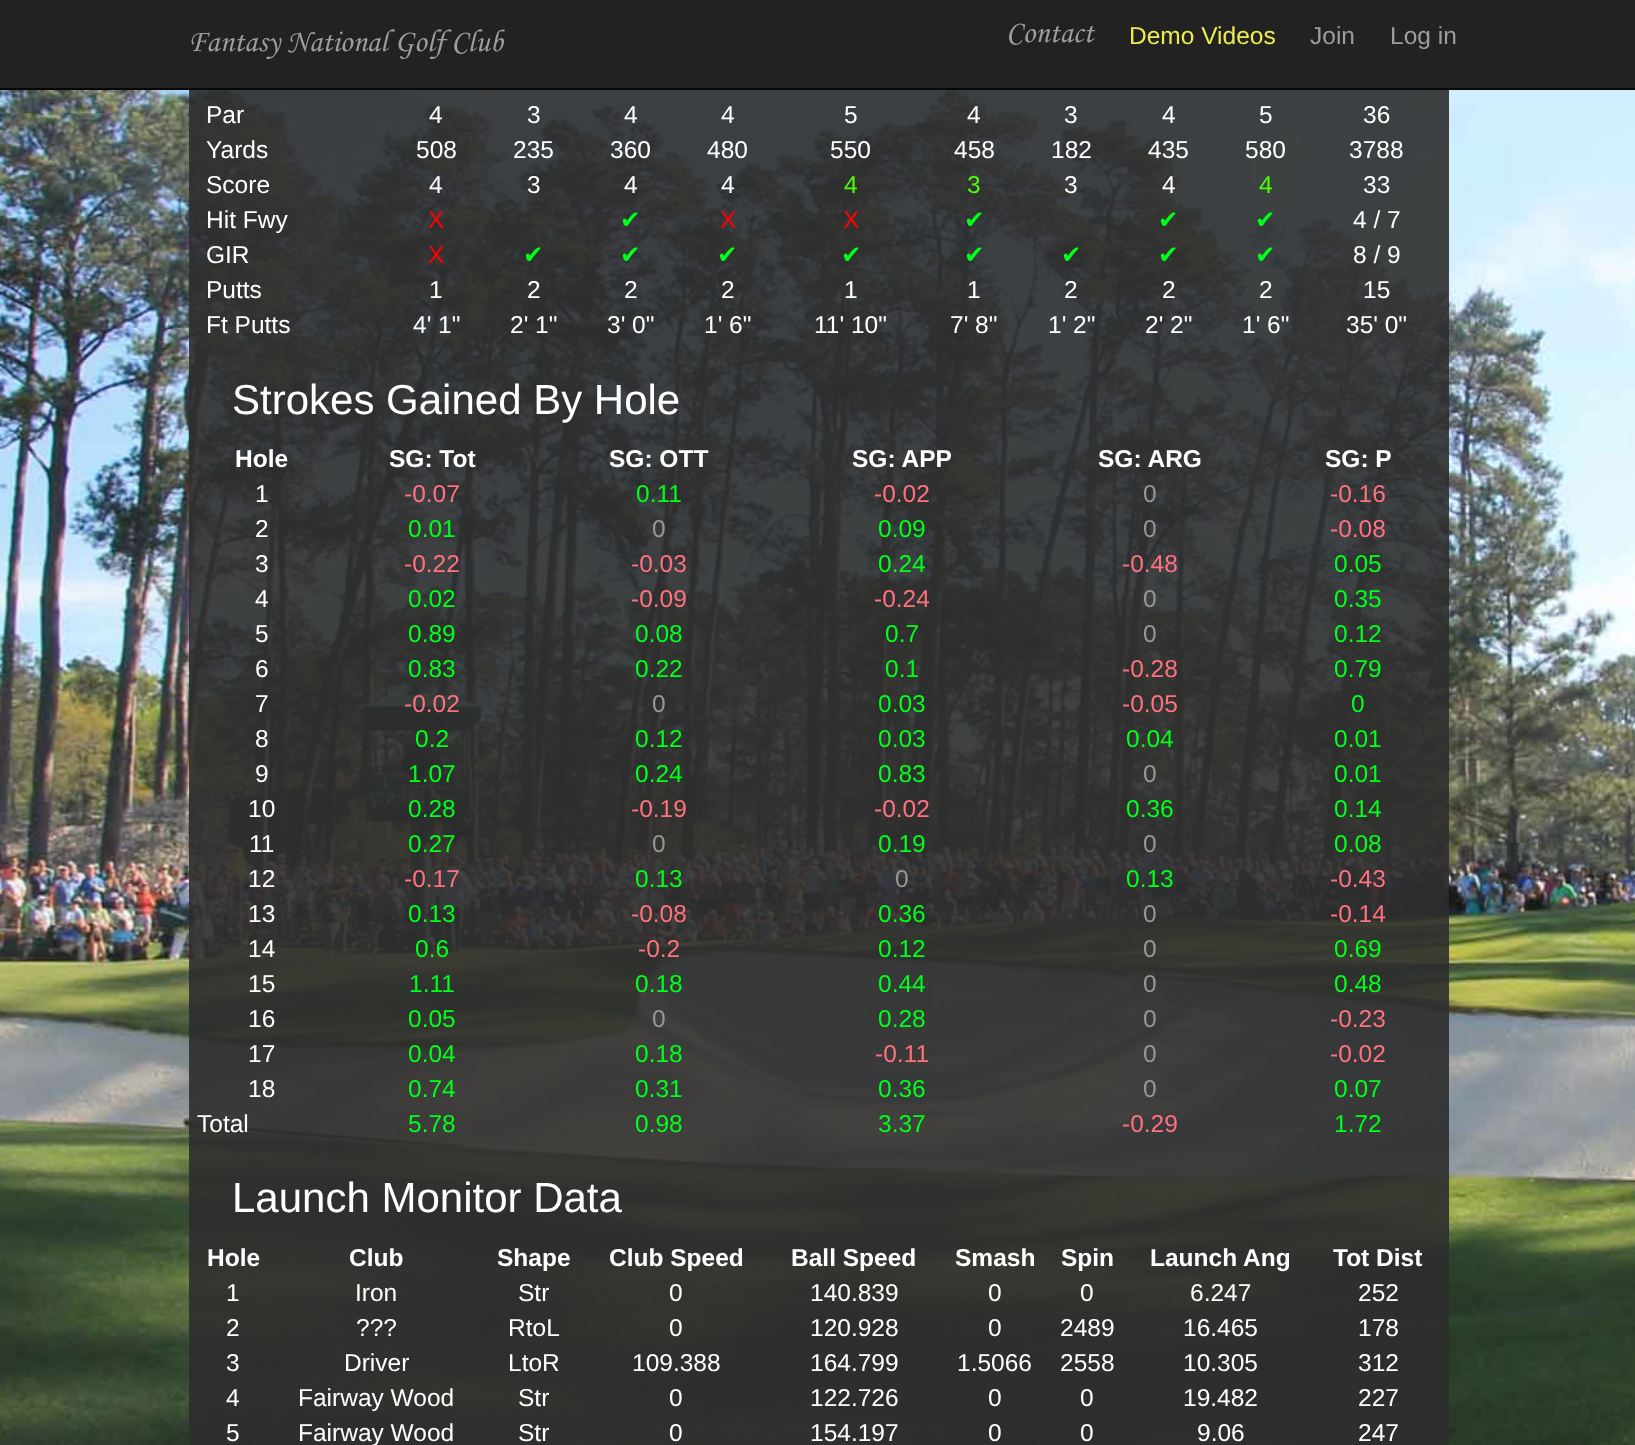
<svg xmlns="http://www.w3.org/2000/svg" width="1635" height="1445">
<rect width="100%" height="100%" fill="#fff"/>
<rect width="1635" height="88" fill="#222"/>
<rect y="88" width="1635" height="2" fill="#080808"/>
<text x="188" y="51" style="font-family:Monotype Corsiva;font-size:31.5px;font-style:italic;fill:#9d9d9d">Fantasy National Golf Club</text>
<text x="1006" y="42" style="font-family:Monotype Corsiva;font-size:31.5px;font-style:italic;fill:#9d9d9d">Contact</text>
<text x="1129" y="44" style="font-family:Liberation Sans;font-size:24.5px;fill:#ecec4f">Demo Videos</text>
<text x="1310" y="44" style="font-family:Liberation Sans;font-size:24.5px;fill:#9d9d9d">Join</text>
<text x="1390" y="44" style="font-family:Liberation Sans;font-size:24.5px;fill:#9d9d9d">Log in</text>
<image x="0" y="90" width="1635" height="1355" href="media/1.png"/>
<rect x="189" y="90" width="1260" height="1355" fill="#2d2d2de6"/>
<text x="206" y="123" style="font-family:Liberation Sans;font-size:24.5px;fill:#fff">Par</text>
<text x="429" y="123" style="font-family:Liberation Sans;font-size:24.5px;fill:#fff">4</text>
<text x="527" y="123" style="font-family:Liberation Sans;font-size:24.5px;fill:#fff">3</text>
<text x="624" y="123" style="font-family:Liberation Sans;font-size:24.5px;fill:#fff">4</text>
<text x="721" y="123" style="font-family:Liberation Sans;font-size:24.5px;fill:#fff">4</text>
<text x="844" y="123" style="font-family:Liberation Sans;font-size:24.5px;fill:#fff">5</text>
<text x="967" y="123" style="font-family:Liberation Sans;font-size:24.5px;fill:#fff">4</text>
<text x="1064" y="123" style="font-family:Liberation Sans;font-size:24.5px;fill:#fff">3</text>
<text x="1162" y="123" style="font-family:Liberation Sans;font-size:24.5px;fill:#fff">4</text>
<text x="1259" y="123" style="font-family:Liberation Sans;font-size:24.5px;fill:#fff">5</text>
<text x="1363" y="123" style="font-family:Liberation Sans;font-size:24.5px;fill:#fff">36</text>
<text x="206" y="158" style="font-family:Liberation Sans;font-size:24.5px;fill:#fff">Yards</text>
<text x="416" y="158" style="font-family:Liberation Sans;font-size:24.5px;fill:#fff">508</text>
<text x="513" y="158" style="font-family:Liberation Sans;font-size:24.5px;fill:#fff">235</text>
<text x="610" y="158" style="font-family:Liberation Sans;font-size:24.5px;fill:#fff">360</text>
<text x="707" y="158" style="font-family:Liberation Sans;font-size:24.5px;fill:#fff">480</text>
<text x="830" y="158" style="font-family:Liberation Sans;font-size:24.5px;fill:#fff">550</text>
<text x="954" y="158" style="font-family:Liberation Sans;font-size:24.5px;fill:#fff">458</text>
<text x="1051" y="158" style="font-family:Liberation Sans;font-size:24.5px;fill:#fff">182</text>
<text x="1148" y="158" style="font-family:Liberation Sans;font-size:24.5px;fill:#fff">435</text>
<text x="1245" y="158" style="font-family:Liberation Sans;font-size:24.5px;fill:#fff">580</text>
<text x="1349" y="158" style="font-family:Liberation Sans;font-size:24.5px;fill:#fff">3788</text>
<text x="206" y="193" style="font-family:Liberation Sans;font-size:24.5px;fill:#fff">Score</text>
<text x="429" y="193" style="font-family:Liberation Sans;font-size:24.5px;fill:#fff">4</text>
<text x="527" y="193" style="font-family:Liberation Sans;font-size:24.5px;fill:#fff">3</text>
<text x="624" y="193" style="font-family:Liberation Sans;font-size:24.5px;fill:#fff">4</text>
<text x="721" y="193" style="font-family:Liberation Sans;font-size:24.5px;fill:#fff">4</text>
<text x="844" y="193" style="font-family:Liberation Sans;font-size:24.5px;fill:#4cff00">4</text>
<text x="967" y="193" style="font-family:Liberation Sans;font-size:24.5px;fill:#4cff00">3</text>
<text x="1064" y="193" style="font-family:Liberation Sans;font-size:24.5px;fill:#fff">3</text>
<text x="1162" y="193" style="font-family:Liberation Sans;font-size:24.5px;fill:#fff">4</text>
<text x="1259" y="193" style="font-family:Liberation Sans;font-size:24.5px;fill:#4cff00">4</text>
<text x="1363" y="193" style="font-family:Liberation Sans;font-size:24.5px;fill:#fff">33</text>
<text x="206" y="228" style="font-family:Liberation Sans;font-size:24.5px;fill:#fff">Hit Fwy</text>
<text x="428" y="228" style="font-family:Liberation Sans;font-size:24.5px;fill:#f00">X</text>
<text x="620" y="228" style="font-family:DejaVu Sans;font-size:24.5px;fill:#00ff1a">✔</text>
<text x="720" y="228" style="font-family:Liberation Sans;font-size:24.5px;fill:#f00">X</text>
<text x="843" y="228" style="font-family:Liberation Sans;font-size:24.5px;fill:#f00">X</text>
<text x="964" y="228" style="font-family:DejaVu Sans;font-size:24.5px;fill:#00ff1a">✔</text>
<text x="1158" y="228" style="font-family:DejaVu Sans;font-size:24.5px;fill:#00ff1a">✔</text>
<text x="1255" y="228" style="font-family:DejaVu Sans;font-size:24.5px;fill:#00ff1a">✔</text>
<text x="1353" y="228" style="font-family:Liberation Sans;font-size:24.5px;fill:#fff">4 / 7</text>
<text x="206" y="263" style="font-family:Liberation Sans;font-size:24.5px;fill:#fff">GIR</text>
<text x="428" y="263" style="font-family:Liberation Sans;font-size:24.5px;fill:#f00">X</text>
<text x="523" y="263" style="font-family:DejaVu Sans;font-size:24.5px;fill:#00ff1a">✔</text>
<text x="620" y="263" style="font-family:DejaVu Sans;font-size:24.5px;fill:#00ff1a">✔</text>
<text x="717" y="263" style="font-family:DejaVu Sans;font-size:24.5px;fill:#00ff1a">✔</text>
<text x="841" y="263" style="font-family:DejaVu Sans;font-size:24.5px;fill:#00ff1a">✔</text>
<text x="964" y="263" style="font-family:DejaVu Sans;font-size:24.5px;fill:#00ff1a">✔</text>
<text x="1061" y="263" style="font-family:DejaVu Sans;font-size:24.5px;fill:#00ff1a">✔</text>
<text x="1158" y="263" style="font-family:DejaVu Sans;font-size:24.5px;fill:#00ff1a">✔</text>
<text x="1255" y="263" style="font-family:DejaVu Sans;font-size:24.5px;fill:#00ff1a">✔</text>
<text x="1353" y="263" style="font-family:Liberation Sans;font-size:24.5px;fill:#fff">8 / 9</text>
<text x="206" y="298" style="font-family:Liberation Sans;font-size:24.5px;fill:#fff">Putts</text>
<text x="429" y="298" style="font-family:Liberation Sans;font-size:24.5px;fill:#fff">1</text>
<text x="527" y="298" style="font-family:Liberation Sans;font-size:24.5px;fill:#fff">2</text>
<text x="624" y="298" style="font-family:Liberation Sans;font-size:24.5px;fill:#fff">2</text>
<text x="721" y="298" style="font-family:Liberation Sans;font-size:24.5px;fill:#fff">2</text>
<text x="844" y="298" style="font-family:Liberation Sans;font-size:24.5px;fill:#fff">1</text>
<text x="967" y="298" style="font-family:Liberation Sans;font-size:24.5px;fill:#fff">1</text>
<text x="1064" y="298" style="font-family:Liberation Sans;font-size:24.5px;fill:#fff">2</text>
<text x="1162" y="298" style="font-family:Liberation Sans;font-size:24.5px;fill:#fff">2</text>
<text x="1259" y="298" style="font-family:Liberation Sans;font-size:24.5px;fill:#fff">2</text>
<text x="1363" y="298" style="font-family:Liberation Sans;font-size:24.5px;fill:#fff">15</text>
<text x="206" y="333" style="font-family:Liberation Sans;font-size:24.5px;fill:#fff">Ft Putts</text>
<text x="413" y="333" style="font-family:Liberation Sans;font-size:24.5px;fill:#fff">4' 1"</text>
<text x="510" y="333" style="font-family:Liberation Sans;font-size:24.5px;fill:#fff">2' 1"</text>
<text x="607" y="333" style="font-family:Liberation Sans;font-size:24.5px;fill:#fff">3' 0"</text>
<text x="704" y="333" style="font-family:Liberation Sans;font-size:24.5px;fill:#fff">1' 6"</text>
<text x="814" y="333" style="font-family:Liberation Sans;font-size:24.5px;fill:#fff">11' 10"</text>
<text x="950" y="333" style="font-family:Liberation Sans;font-size:24.5px;fill:#fff">7' 8"</text>
<text x="1048" y="333" style="font-family:Liberation Sans;font-size:24.5px;fill:#fff">1' 2"</text>
<text x="1145" y="333" style="font-family:Liberation Sans;font-size:24.5px;fill:#fff">2' 2"</text>
<text x="1242" y="333" style="font-family:Liberation Sans;font-size:24.5px;fill:#fff">1' 6"</text>
<text x="1346" y="333" style="font-family:Liberation Sans;font-size:24.5px;fill:#fff">35' 0"</text>
<text x="232" y="414" style="font-family:Liberation Sans;font-size:42px;fill:#fff">Strokes Gained By Hole</text>
<text x="235" y="467" style="font-family:Liberation Sans;font-size:24.5px;font-weight:bold;fill:#fff">Hole</text>
<text x="389" y="467" style="font-family:Liberation Sans;font-size:24.5px;font-weight:bold;fill:#fff">SG: Tot</text>
<text x="609" y="467" style="font-family:Liberation Sans;font-size:24.5px;font-weight:bold;fill:#fff">SG: OTT</text>
<text x="852" y="467" style="font-family:Liberation Sans;font-size:24.5px;font-weight:bold;fill:#fff">SG: APP</text>
<text x="1098" y="467" style="font-family:Liberation Sans;font-size:24.5px;font-weight:bold;fill:#fff">SG: ARG</text>
<text x="1325" y="467" style="font-family:Liberation Sans;font-size:24.5px;font-weight:bold;fill:#fff">SG: P</text>
<text x="255" y="502" style="font-family:Liberation Sans;font-size:24.5px;fill:#fff">1</text>
<text x="404" y="502" style="font-family:Liberation Sans;font-size:24.5px;fill:#ff717e">-0.07</text>
<text x="636" y="502" style="font-family:Liberation Sans;font-size:24.5px;fill:#00ff1a">0.11</text>
<text x="874" y="502" style="font-family:Liberation Sans;font-size:24.5px;fill:#ff717e">-0.02</text>
<text x="1143" y="502" style="font-family:Liberation Sans;font-size:24.5px;fill:#969696">0</text>
<text x="1330" y="502" style="font-family:Liberation Sans;font-size:24.5px;fill:#ff717e">-0.16</text>
<text x="255" y="537" style="font-family:Liberation Sans;font-size:24.5px;fill:#fff">2</text>
<text x="408" y="537" style="font-family:Liberation Sans;font-size:24.5px;fill:#00ff1a">0.01</text>
<text x="652" y="537" style="font-family:Liberation Sans;font-size:24.5px;fill:#969696">0</text>
<text x="878" y="537" style="font-family:Liberation Sans;font-size:24.5px;fill:#00ff1a">0.09</text>
<text x="1143" y="537" style="font-family:Liberation Sans;font-size:24.5px;fill:#969696">0</text>
<text x="1330" y="537" style="font-family:Liberation Sans;font-size:24.5px;fill:#ff717e">-0.08</text>
<text x="255" y="572" style="font-family:Liberation Sans;font-size:24.5px;fill:#fff">3</text>
<text x="404" y="572" style="font-family:Liberation Sans;font-size:24.5px;fill:#ff717e">-0.22</text>
<text x="631" y="572" style="font-family:Liberation Sans;font-size:24.5px;fill:#ff717e">-0.03</text>
<text x="878" y="572" style="font-family:Liberation Sans;font-size:24.5px;fill:#00ff1a">0.24</text>
<text x="1122" y="572" style="font-family:Liberation Sans;font-size:24.5px;fill:#ff717e">-0.48</text>
<text x="1334" y="572" style="font-family:Liberation Sans;font-size:24.5px;fill:#00ff1a">0.05</text>
<text x="255" y="607" style="font-family:Liberation Sans;font-size:24.5px;fill:#fff">4</text>
<text x="408" y="607" style="font-family:Liberation Sans;font-size:24.5px;fill:#00ff1a">0.02</text>
<text x="631" y="607" style="font-family:Liberation Sans;font-size:24.5px;fill:#ff717e">-0.09</text>
<text x="874" y="607" style="font-family:Liberation Sans;font-size:24.5px;fill:#ff717e">-0.24</text>
<text x="1143" y="607" style="font-family:Liberation Sans;font-size:24.5px;fill:#969696">0</text>
<text x="1334" y="607" style="font-family:Liberation Sans;font-size:24.5px;fill:#00ff1a">0.35</text>
<text x="255" y="642" style="font-family:Liberation Sans;font-size:24.5px;fill:#fff">5</text>
<text x="408" y="642" style="font-family:Liberation Sans;font-size:24.5px;fill:#00ff1a">0.89</text>
<text x="635" y="642" style="font-family:Liberation Sans;font-size:24.5px;fill:#00ff1a">0.08</text>
<text x="885" y="642" style="font-family:Liberation Sans;font-size:24.5px;fill:#00ff1a">0.7</text>
<text x="1143" y="642" style="font-family:Liberation Sans;font-size:24.5px;fill:#969696">0</text>
<text x="1334" y="642" style="font-family:Liberation Sans;font-size:24.5px;fill:#00ff1a">0.12</text>
<text x="255" y="677" style="font-family:Liberation Sans;font-size:24.5px;fill:#fff">6</text>
<text x="408" y="677" style="font-family:Liberation Sans;font-size:24.5px;fill:#00ff1a">0.83</text>
<text x="635" y="677" style="font-family:Liberation Sans;font-size:24.5px;fill:#00ff1a">0.22</text>
<text x="885" y="677" style="font-family:Liberation Sans;font-size:24.5px;fill:#00ff1a">0.1</text>
<text x="1122" y="677" style="font-family:Liberation Sans;font-size:24.5px;fill:#ff717e">-0.28</text>
<text x="1334" y="677" style="font-family:Liberation Sans;font-size:24.5px;fill:#00ff1a">0.79</text>
<text x="255" y="712" style="font-family:Liberation Sans;font-size:24.5px;fill:#fff">7</text>
<text x="404" y="712" style="font-family:Liberation Sans;font-size:24.5px;fill:#ff717e">-0.02</text>
<text x="652" y="712" style="font-family:Liberation Sans;font-size:24.5px;fill:#969696">0</text>
<text x="878" y="712" style="font-family:Liberation Sans;font-size:24.5px;fill:#00ff1a">0.03</text>
<text x="1122" y="712" style="font-family:Liberation Sans;font-size:24.5px;fill:#ff717e">-0.05</text>
<text x="1351" y="712" style="font-family:Liberation Sans;font-size:24.5px;fill:#00ff1a">0</text>
<text x="255" y="747" style="font-family:Liberation Sans;font-size:24.5px;fill:#fff">8</text>
<text x="415" y="747" style="font-family:Liberation Sans;font-size:24.5px;fill:#00ff1a">0.2</text>
<text x="635" y="747" style="font-family:Liberation Sans;font-size:24.5px;fill:#00ff1a">0.12</text>
<text x="878" y="747" style="font-family:Liberation Sans;font-size:24.5px;fill:#00ff1a">0.03</text>
<text x="1126" y="747" style="font-family:Liberation Sans;font-size:24.5px;fill:#00ff1a">0.04</text>
<text x="1334" y="747" style="font-family:Liberation Sans;font-size:24.5px;fill:#00ff1a">0.01</text>
<text x="255" y="782" style="font-family:Liberation Sans;font-size:24.5px;fill:#fff">9</text>
<text x="408" y="782" style="font-family:Liberation Sans;font-size:24.5px;fill:#00ff1a">1.07</text>
<text x="635" y="782" style="font-family:Liberation Sans;font-size:24.5px;fill:#00ff1a">0.24</text>
<text x="878" y="782" style="font-family:Liberation Sans;font-size:24.5px;fill:#00ff1a">0.83</text>
<text x="1143" y="782" style="font-family:Liberation Sans;font-size:24.5px;fill:#969696">0</text>
<text x="1334" y="782" style="font-family:Liberation Sans;font-size:24.5px;fill:#00ff1a">0.01</text>
<text x="248" y="817" style="font-family:Liberation Sans;font-size:24.5px;fill:#fff">10</text>
<text x="408" y="817" style="font-family:Liberation Sans;font-size:24.5px;fill:#00ff1a">0.28</text>
<text x="631" y="817" style="font-family:Liberation Sans;font-size:24.5px;fill:#ff717e">-0.19</text>
<text x="874" y="817" style="font-family:Liberation Sans;font-size:24.5px;fill:#ff717e">-0.02</text>
<text x="1126" y="817" style="font-family:Liberation Sans;font-size:24.5px;fill:#00ff1a">0.36</text>
<text x="1334" y="817" style="font-family:Liberation Sans;font-size:24.5px;fill:#00ff1a">0.14</text>
<text x="249" y="852" style="font-family:Liberation Sans;font-size:24.5px;fill:#fff">11</text>
<text x="408" y="852" style="font-family:Liberation Sans;font-size:24.5px;fill:#00ff1a">0.27</text>
<text x="652" y="852" style="font-family:Liberation Sans;font-size:24.5px;fill:#969696">0</text>
<text x="878" y="852" style="font-family:Liberation Sans;font-size:24.5px;fill:#00ff1a">0.19</text>
<text x="1143" y="852" style="font-family:Liberation Sans;font-size:24.5px;fill:#969696">0</text>
<text x="1334" y="852" style="font-family:Liberation Sans;font-size:24.5px;fill:#00ff1a">0.08</text>
<text x="248" y="887" style="font-family:Liberation Sans;font-size:24.5px;fill:#fff">12</text>
<text x="404" y="887" style="font-family:Liberation Sans;font-size:24.5px;fill:#ff717e">-0.17</text>
<text x="635" y="887" style="font-family:Liberation Sans;font-size:24.5px;fill:#00ff1a">0.13</text>
<text x="895" y="887" style="font-family:Liberation Sans;font-size:24.5px;fill:#969696">0</text>
<text x="1126" y="887" style="font-family:Liberation Sans;font-size:24.5px;fill:#00ff1a">0.13</text>
<text x="1330" y="887" style="font-family:Liberation Sans;font-size:24.5px;fill:#ff717e">-0.43</text>
<text x="248" y="922" style="font-family:Liberation Sans;font-size:24.5px;fill:#fff">13</text>
<text x="408" y="922" style="font-family:Liberation Sans;font-size:24.5px;fill:#00ff1a">0.13</text>
<text x="631" y="922" style="font-family:Liberation Sans;font-size:24.5px;fill:#ff717e">-0.08</text>
<text x="878" y="922" style="font-family:Liberation Sans;font-size:24.5px;fill:#00ff1a">0.36</text>
<text x="1143" y="922" style="font-family:Liberation Sans;font-size:24.5px;fill:#969696">0</text>
<text x="1330" y="922" style="font-family:Liberation Sans;font-size:24.5px;fill:#ff717e">-0.14</text>
<text x="248" y="957" style="font-family:Liberation Sans;font-size:24.5px;fill:#fff">14</text>
<text x="415" y="957" style="font-family:Liberation Sans;font-size:24.5px;fill:#00ff1a">0.6</text>
<text x="638" y="957" style="font-family:Liberation Sans;font-size:24.5px;fill:#ff717e">-0.2</text>
<text x="878" y="957" style="font-family:Liberation Sans;font-size:24.5px;fill:#00ff1a">0.12</text>
<text x="1143" y="957" style="font-family:Liberation Sans;font-size:24.5px;fill:#969696">0</text>
<text x="1334" y="957" style="font-family:Liberation Sans;font-size:24.5px;fill:#00ff1a">0.69</text>
<text x="248" y="992" style="font-family:Liberation Sans;font-size:24.5px;fill:#fff">15</text>
<text x="409" y="992" style="font-family:Liberation Sans;font-size:24.5px;fill:#00ff1a">1.11</text>
<text x="635" y="992" style="font-family:Liberation Sans;font-size:24.5px;fill:#00ff1a">0.18</text>
<text x="878" y="992" style="font-family:Liberation Sans;font-size:24.5px;fill:#00ff1a">0.44</text>
<text x="1143" y="992" style="font-family:Liberation Sans;font-size:24.5px;fill:#969696">0</text>
<text x="1334" y="992" style="font-family:Liberation Sans;font-size:24.5px;fill:#00ff1a">0.48</text>
<text x="248" y="1027" style="font-family:Liberation Sans;font-size:24.5px;fill:#fff">16</text>
<text x="408" y="1027" style="font-family:Liberation Sans;font-size:24.5px;fill:#00ff1a">0.05</text>
<text x="652" y="1027" style="font-family:Liberation Sans;font-size:24.5px;fill:#969696">0</text>
<text x="878" y="1027" style="font-family:Liberation Sans;font-size:24.5px;fill:#00ff1a">0.28</text>
<text x="1143" y="1027" style="font-family:Liberation Sans;font-size:24.5px;fill:#969696">0</text>
<text x="1330" y="1027" style="font-family:Liberation Sans;font-size:24.5px;fill:#ff717e">-0.23</text>
<text x="248" y="1062" style="font-family:Liberation Sans;font-size:24.5px;fill:#fff">17</text>
<text x="408" y="1062" style="font-family:Liberation Sans;font-size:24.5px;fill:#00ff1a">0.04</text>
<text x="635" y="1062" style="font-family:Liberation Sans;font-size:24.5px;fill:#00ff1a">0.18</text>
<text x="875" y="1062" style="font-family:Liberation Sans;font-size:24.5px;fill:#ff717e">-0.11</text>
<text x="1143" y="1062" style="font-family:Liberation Sans;font-size:24.5px;fill:#969696">0</text>
<text x="1330" y="1062" style="font-family:Liberation Sans;font-size:24.5px;fill:#ff717e">-0.02</text>
<text x="248" y="1097" style="font-family:Liberation Sans;font-size:24.5px;fill:#fff">18</text>
<text x="408" y="1097" style="font-family:Liberation Sans;font-size:24.5px;fill:#00ff1a">0.74</text>
<text x="635" y="1097" style="font-family:Liberation Sans;font-size:24.5px;fill:#00ff1a">0.31</text>
<text x="878" y="1097" style="font-family:Liberation Sans;font-size:24.5px;fill:#00ff1a">0.36</text>
<text x="1143" y="1097" style="font-family:Liberation Sans;font-size:24.5px;fill:#969696">0</text>
<text x="1334" y="1097" style="font-family:Liberation Sans;font-size:24.5px;fill:#00ff1a">0.07</text>
<text x="197" y="1132" style="font-family:Liberation Sans;font-size:24.5px;fill:#fff">Total</text>
<text x="408" y="1132" style="font-family:Liberation Sans;font-size:24.5px;fill:#00ff1a">5.78</text>
<text x="635" y="1132" style="font-family:Liberation Sans;font-size:24.5px;fill:#00ff1a">0.98</text>
<text x="878" y="1132" style="font-family:Liberation Sans;font-size:24.5px;fill:#00ff1a">3.37</text>
<text x="1122" y="1132" style="font-family:Liberation Sans;font-size:24.5px;fill:#ff717e">-0.29</text>
<text x="1334" y="1132" style="font-family:Liberation Sans;font-size:24.5px;fill:#00ff1a">1.72</text>
<text x="232" y="1212" style="font-family:Liberation Sans;font-size:42px;fill:#fff">Launch Monitor Data</text>
<text x="207" y="1266" style="font-family:Liberation Sans;font-size:24.5px;font-weight:bold;fill:#fff">Hole</text>
<text x="349" y="1266" style="font-family:Liberation Sans;font-size:24.5px;font-weight:bold;fill:#fff">Club</text>
<text x="497" y="1266" style="font-family:Liberation Sans;font-size:24.5px;font-weight:bold;fill:#fff">Shape</text>
<text x="609" y="1266" style="font-family:Liberation Sans;font-size:24.5px;font-weight:bold;fill:#fff">Club Speed</text>
<text x="791" y="1266" style="font-family:Liberation Sans;font-size:24.5px;font-weight:bold;fill:#fff">Ball Speed</text>
<text x="955" y="1266" style="font-family:Liberation Sans;font-size:24.5px;font-weight:bold;fill:#fff">Smash</text>
<text x="1061" y="1266" style="font-family:Liberation Sans;font-size:24.5px;font-weight:bold;fill:#fff">Spin</text>
<text x="1150" y="1266" style="font-family:Liberation Sans;font-size:24.5px;font-weight:bold;fill:#fff">Launch Ang</text>
<text x="1333" y="1266" style="font-family:Liberation Sans;font-size:24.5px;font-weight:bold;fill:#fff">Tot Dist</text>
<text x="226" y="1301" style="font-family:Liberation Sans;font-size:24.5px;fill:#fff">1</text>
<text x="355" y="1301" style="font-family:Liberation Sans;font-size:24.5px;fill:#fff">Iron</text>
<text x="518" y="1301" style="font-family:Liberation Sans;font-size:24.5px;fill:#fff">Str</text>
<text x="669" y="1301" style="font-family:Liberation Sans;font-size:24.5px;fill:#fff">0</text>
<text x="810" y="1301" style="font-family:Liberation Sans;font-size:24.5px;fill:#fff">140.839</text>
<text x="988" y="1301" style="font-family:Liberation Sans;font-size:24.5px;fill:#fff">0</text>
<text x="1080" y="1301" style="font-family:Liberation Sans;font-size:24.5px;fill:#fff">0</text>
<text x="1190" y="1301" style="font-family:Liberation Sans;font-size:24.5px;fill:#fff">6.247</text>
<text x="1358" y="1301" style="font-family:Liberation Sans;font-size:24.5px;fill:#fff">252</text>
<text x="226" y="1336" style="font-family:Liberation Sans;font-size:24.5px;fill:#fff">2</text>
<text x="356" y="1336" style="font-family:Liberation Sans;font-size:24.5px;fill:#fff">???</text>
<text x="508" y="1336" style="font-family:Liberation Sans;font-size:24.5px;fill:#fff">RtoL</text>
<text x="669" y="1336" style="font-family:Liberation Sans;font-size:24.5px;fill:#fff">0</text>
<text x="810" y="1336" style="font-family:Liberation Sans;font-size:24.5px;fill:#fff">120.928</text>
<text x="988" y="1336" style="font-family:Liberation Sans;font-size:24.5px;fill:#fff">0</text>
<text x="1060" y="1336" style="font-family:Liberation Sans;font-size:24.5px;fill:#fff">2489</text>
<text x="1183" y="1336" style="font-family:Liberation Sans;font-size:24.5px;fill:#fff">16.465</text>
<text x="1358" y="1336" style="font-family:Liberation Sans;font-size:24.5px;fill:#fff">178</text>
<text x="226" y="1371" style="font-family:Liberation Sans;font-size:24.5px;fill:#fff">3</text>
<text x="344" y="1371" style="font-family:Liberation Sans;font-size:24.5px;fill:#fff">Driver</text>
<text x="508" y="1371" style="font-family:Liberation Sans;font-size:24.5px;fill:#fff">LtoR</text>
<text x="632" y="1371" style="font-family:Liberation Sans;font-size:24.5px;fill:#fff">109.388</text>
<text x="810" y="1371" style="font-family:Liberation Sans;font-size:24.5px;fill:#fff">164.799</text>
<text x="957" y="1371" style="font-family:Liberation Sans;font-size:24.5px;fill:#fff">1.5066</text>
<text x="1060" y="1371" style="font-family:Liberation Sans;font-size:24.5px;fill:#fff">2558</text>
<text x="1183" y="1371" style="font-family:Liberation Sans;font-size:24.5px;fill:#fff">10.305</text>
<text x="1358" y="1371" style="font-family:Liberation Sans;font-size:24.5px;fill:#fff">312</text>
<text x="226" y="1406" style="font-family:Liberation Sans;font-size:24.5px;fill:#fff">4</text>
<text x="298" y="1406" style="font-family:Liberation Sans;font-size:24.5px;fill:#fff">Fairway Wood</text>
<text x="518" y="1406" style="font-family:Liberation Sans;font-size:24.5px;fill:#fff">Str</text>
<text x="669" y="1406" style="font-family:Liberation Sans;font-size:24.5px;fill:#fff">0</text>
<text x="810" y="1406" style="font-family:Liberation Sans;font-size:24.5px;fill:#fff">122.726</text>
<text x="988" y="1406" style="font-family:Liberation Sans;font-size:24.5px;fill:#fff">0</text>
<text x="1080" y="1406" style="font-family:Liberation Sans;font-size:24.5px;fill:#fff">0</text>
<text x="1183" y="1406" style="font-family:Liberation Sans;font-size:24.5px;fill:#fff">19.482</text>
<text x="1358" y="1406" style="font-family:Liberation Sans;font-size:24.5px;fill:#fff">227</text>
<text x="226" y="1441" style="font-family:Liberation Sans;font-size:24.5px;fill:#fff">5</text>
<text x="298" y="1441" style="font-family:Liberation Sans;font-size:24.5px;fill:#fff">Fairway Wood</text>
<text x="518" y="1441" style="font-family:Liberation Sans;font-size:24.5px;fill:#fff">Str</text>
<text x="669" y="1441" style="font-family:Liberation Sans;font-size:24.5px;fill:#fff">0</text>
<text x="810" y="1441" style="font-family:Liberation Sans;font-size:24.5px;fill:#fff">154.197</text>
<text x="988" y="1441" style="font-family:Liberation Sans;font-size:24.5px;fill:#fff">0</text>
<text x="1080" y="1441" style="font-family:Liberation Sans;font-size:24.5px;fill:#fff">0</text>
<text x="1197" y="1441" style="font-family:Liberation Sans;font-size:24.5px;fill:#fff">9.06</text>
<text x="1358" y="1441" style="font-family:Liberation Sans;font-size:24.5px;fill:#fff">247</text>
</svg>
